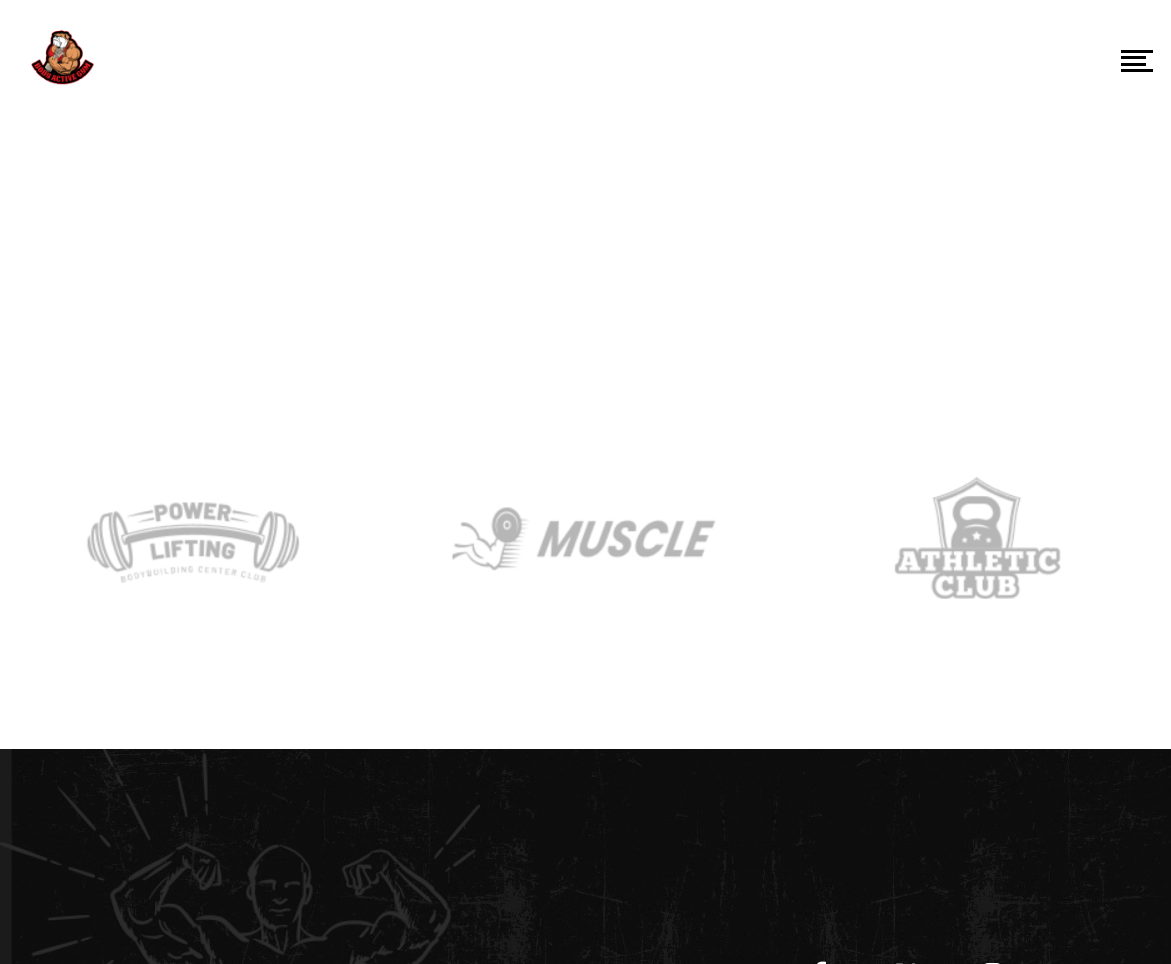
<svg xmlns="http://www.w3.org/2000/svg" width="1171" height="964">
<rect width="100%" height="100%" fill="#fff"/>
<image x="31" y="30" width="63" height="55" href="media/1.png"/>
<rect x="1121" y="50" width="32" height="3" fill="#000"/>
<rect x="1121" y="56" width="25" height="3" fill="#000"/>
<rect x="1121" y="63" width="25" height="3" fill="#000"/>
<rect x="1121" y="69" width="32" height="3" fill="#000"/>
<image x="86" y="502" width="214" height="81" href="media/2.png"/>
<image x="451" y="507" width="265" height="64" href="media/3.png"/>
<image x="894" y="477" width="167" height="122" href="media/4.png"/>
<image x="0" y="749" width="1171" height="215" href="media/5.png"/>
<image x="0" y="749" width="480" height="215" href="media/6.png"/>
<image x="817" y="961" width="9" height="3" href="media/7.png"/>
<image x="896" y="963" width="20" height="1" href="media/8.png"/>
<image x="985" y="963" width="15" height="1" href="media/9.png"/>
</svg>
